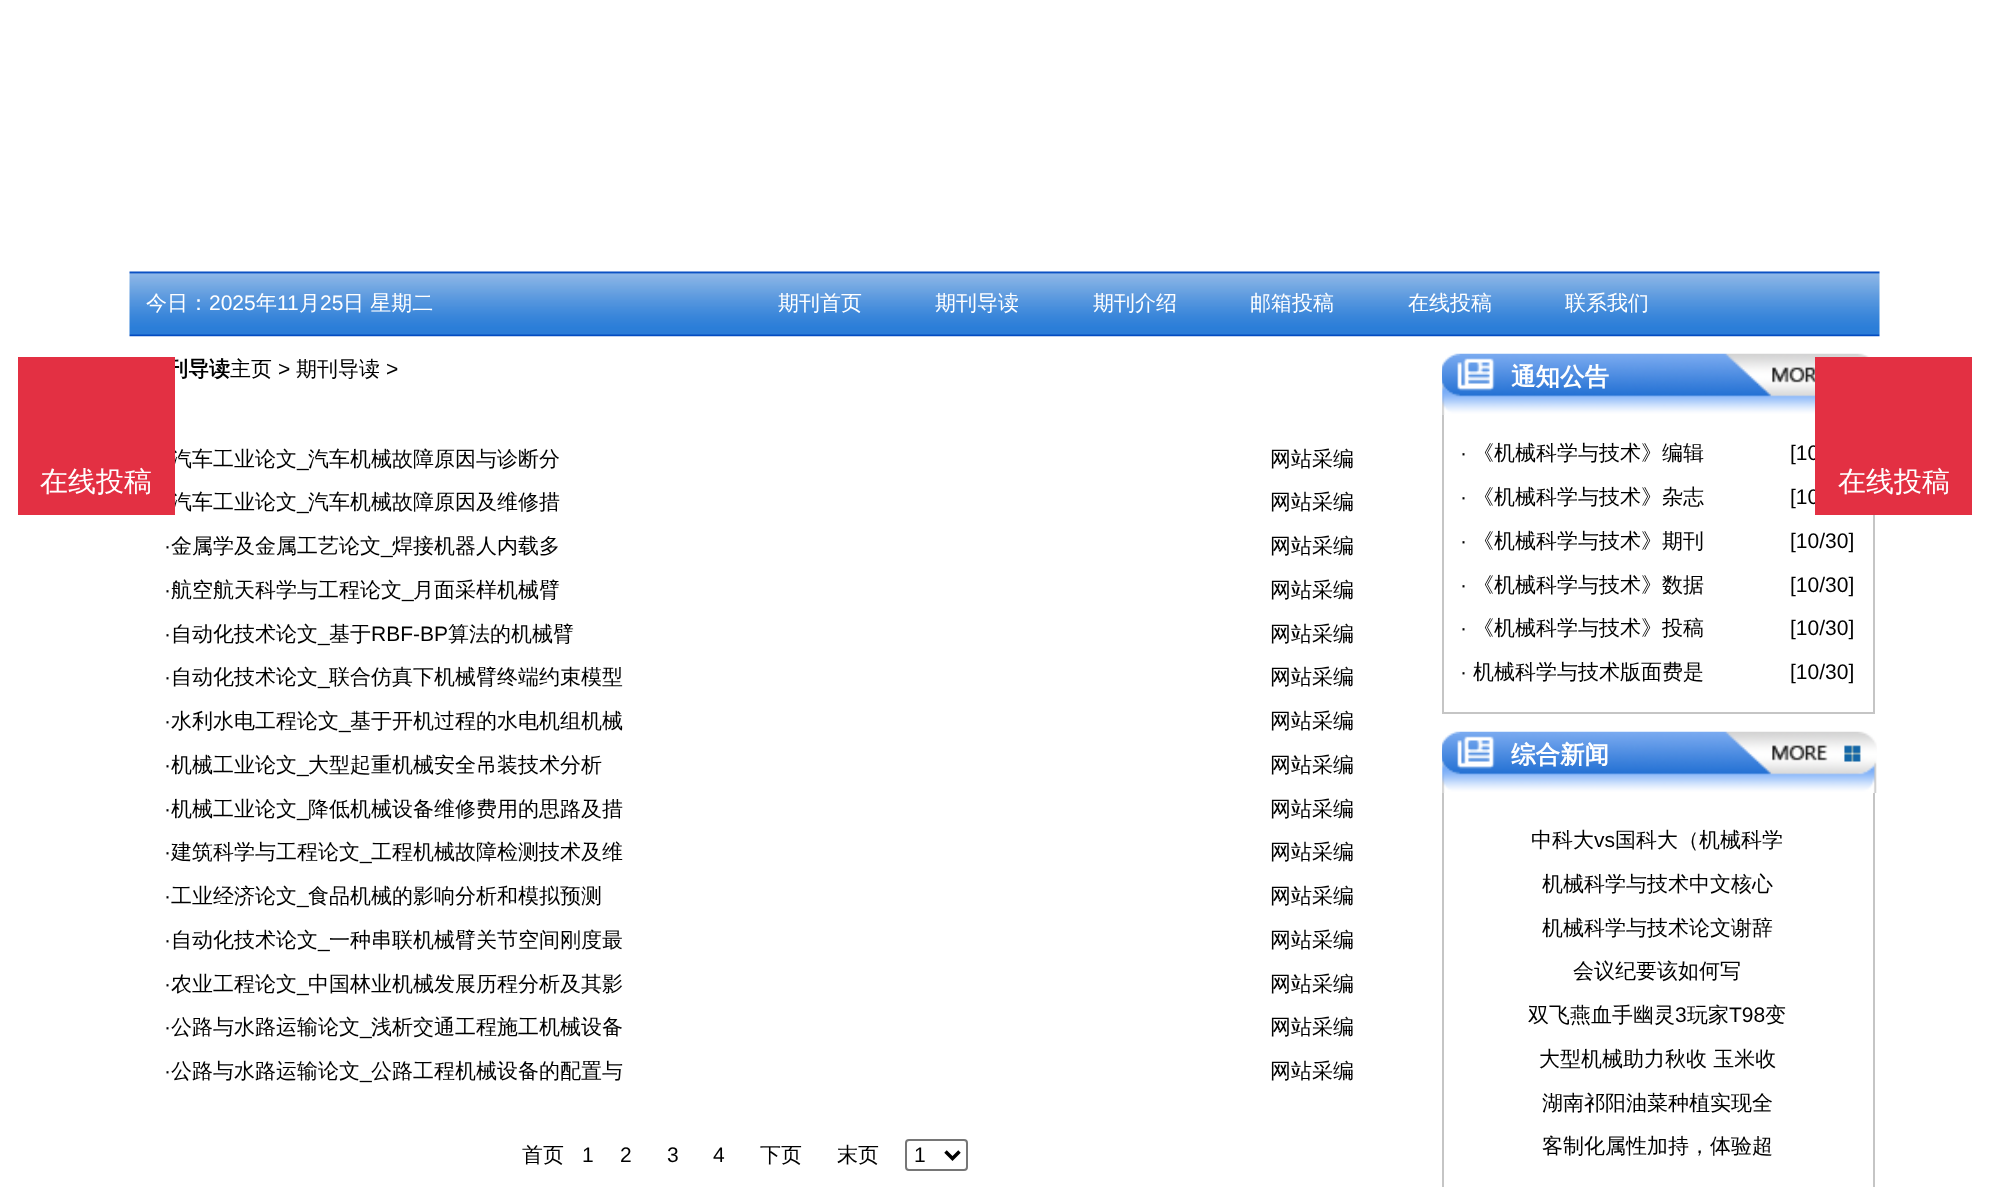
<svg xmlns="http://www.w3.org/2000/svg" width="2006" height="1187">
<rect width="100%" height="100%" fill="#fff"/>
<image x="129" y="271" width="1751" height="66" href="media/1.png"/>
<text x="146" y="310" style="font-family:WenQuanYi Zen Hei;font-size:21px;font-weight:500;fill:#fff">今日：</text>
<text x="209" y="310" style="font-family:Liberation Sans;font-size:21px;fill:#fff">2025</text>
<text x="256" y="310" style="font-family:WenQuanYi Zen Hei;font-size:21px;font-weight:500;fill:#fff">年</text>
<text x="277" y="310" style="font-family:Liberation Sans;font-size:21px;fill:#fff">11</text>
<text x="299" y="310" style="font-family:WenQuanYi Zen Hei;font-size:21px;font-weight:500;fill:#fff">月</text>
<text x="320" y="310" style="font-family:Liberation Sans;font-size:21px;fill:#fff">25</text>
<text x="343" y="310" style="font-family:WenQuanYi Zen Hei;font-size:21px;font-weight:500;fill:#fff">日 星期二</text>
<text x="778" y="310" style="font-family:WenQuanYi Zen Hei;font-size:21px;font-weight:500;fill:#fff">期刊首页</text>
<text x="935" y="310" style="font-family:WenQuanYi Zen Hei;font-size:21px;font-weight:500;fill:#fff">期刊导读</text>
<text x="1093" y="310" style="font-family:WenQuanYi Zen Hei;font-size:21px;font-weight:500;fill:#fff">期刊介绍</text>
<text x="1250" y="310" style="font-family:WenQuanYi Zen Hei;font-size:21px;font-weight:500;fill:#fff">邮箱投稿</text>
<text x="1408" y="310" style="font-family:WenQuanYi Zen Hei;font-size:21px;font-weight:500;fill:#fff">在线投稿</text>
<text x="1565" y="310" style="font-family:WenQuanYi Zen Hei;font-size:21px;font-weight:500;fill:#fff">联系我们</text>
<text x="167" y="376" style="font-family:WenQuanYi Zen Hei;font-size:21px;font-weight:bold;fill:#000">刊导读</text>
<text x="171" y="466" style="font-family:WenQuanYi Zen Hei;font-size:21px;font-weight:500;fill:#000">汽车工业论文</text>
<text x="171" y="509" style="font-family:WenQuanYi Zen Hei;font-size:21px;font-weight:500;fill:#000">汽车工业论文</text>
<rect x="18" y="357" width="157" height="158" fill="#e33043"/>
<text x="40" y="491" style="font-family:WenQuanYi Zen Hei;font-size:28px;font-weight:500;fill:#fff">在线投稿</text>
<text x="230" y="376" style="font-family:WenQuanYi Zen Hei;font-size:21px;font-weight:500;fill:#000">主页</text>
<text x="278" y="376" style="font-family:Liberation Sans;font-size:21px;fill:#000">&gt;</text>
<text x="296" y="376" style="font-family:WenQuanYi Zen Hei;font-size:21px;font-weight:500;fill:#000">期刊导读</text>
<text x="386" y="376" style="font-family:Liberation Sans;font-size:21px;fill:#000">&gt;</text>
<text x="297" y="466" style="font-family:Liberation Sans;font-size:21px;fill:#000">_</text>
<text x="308" y="466" style="font-family:WenQuanYi Zen Hei;font-size:21px;font-weight:500;fill:#000">汽车机械故障原因与诊断分</text>
<text x="1270" y="466" style="font-family:WenQuanYi Zen Hei;font-size:21px;font-weight:500;fill:#000">网站采编</text>
<text x="297" y="509" style="font-family:Liberation Sans;font-size:21px;fill:#000">_</text>
<text x="308" y="509" style="font-family:WenQuanYi Zen Hei;font-size:21px;font-weight:500;fill:#000">汽车机械故障原因及维修措</text>
<text x="1270" y="509" style="font-family:WenQuanYi Zen Hei;font-size:21px;font-weight:500;fill:#000">网站采编</text>
<text x="164" y="553" style="font-family:Liberation Sans;font-size:21px;fill:#000">·</text>
<text x="171" y="553" style="font-family:WenQuanYi Zen Hei;font-size:21px;font-weight:500;fill:#000">金属学及金属工艺论文</text>
<text x="381" y="553" style="font-family:Liberation Sans;font-size:21px;fill:#000">_</text>
<text x="392" y="553" style="font-family:WenQuanYi Zen Hei;font-size:21px;font-weight:500;fill:#000">焊接机器人内载多</text>
<text x="1270" y="553" style="font-family:WenQuanYi Zen Hei;font-size:21px;font-weight:500;fill:#000">网站采编</text>
<text x="164" y="597" style="font-family:Liberation Sans;font-size:21px;fill:#000">·</text>
<text x="171" y="597" style="font-family:WenQuanYi Zen Hei;font-size:21px;font-weight:500;fill:#000">航空航天科学与工程论文</text>
<text x="413" y="597" style="font-family:WenQuanYi Zen Hei;font-size:21px;font-weight:500;fill:#000">月面采样机械臂</text>
<text x="402" y="597" style="font-family:Liberation Sans;font-size:21px;fill:#000">_</text>
<text x="1270" y="597" style="font-family:WenQuanYi Zen Hei;font-size:21px;font-weight:500;fill:#000">网站采编</text>
<text x="164" y="641" style="font-family:Liberation Sans;font-size:21px;fill:#000">·</text>
<text x="171" y="641" style="font-family:WenQuanYi Zen Hei;font-size:21px;font-weight:500;fill:#000">自动化技术论文</text>
<text x="329" y="641" style="font-family:WenQuanYi Zen Hei;font-size:21px;font-weight:500;fill:#000">基于</text>
<text x="371" y="641" style="font-family:Liberation Sans;font-size:21px;fill:#000">RBF-BP</text>
<text x="448" y="641" style="font-family:WenQuanYi Zen Hei;font-size:21px;font-weight:500;fill:#000">算法的机械臂</text>
<text x="318" y="641" style="font-family:Liberation Sans;font-size:21px;fill:#000">_</text>
<text x="1270" y="641" style="font-family:WenQuanYi Zen Hei;font-size:21px;font-weight:500;fill:#000">网站采编</text>
<text x="164" y="684" style="font-family:Liberation Sans;font-size:21px;fill:#000">·</text>
<text x="171" y="684" style="font-family:WenQuanYi Zen Hei;font-size:21px;font-weight:500;fill:#000">自动化技术论文</text>
<text x="318" y="684" style="font-family:Liberation Sans;font-size:21px;fill:#000">_</text>
<text x="329" y="684" style="font-family:WenQuanYi Zen Hei;font-size:21px;font-weight:500;fill:#000">联合仿真下机械臂终端约束模型</text>
<text x="1270" y="684" style="font-family:WenQuanYi Zen Hei;font-size:21px;font-weight:500;fill:#000">网站采编</text>
<text x="164" y="728" style="font-family:Liberation Sans;font-size:21px;fill:#000">·</text>
<text x="171" y="728" style="font-family:WenQuanYi Zen Hei;font-size:21px;font-weight:500;fill:#000">水利水电工程论文</text>
<text x="350" y="728" style="font-family:WenQuanYi Zen Hei;font-size:21px;font-weight:500;fill:#000">基于开机过程的水电机组机械</text>
<text x="339" y="728" style="font-family:Liberation Sans;font-size:21px;fill:#000">_</text>
<text x="1270" y="728" style="font-family:WenQuanYi Zen Hei;font-size:21px;font-weight:500;fill:#000">网站采编</text>
<text x="164" y="772" style="font-family:Liberation Sans;font-size:21px;fill:#000">·</text>
<text x="171" y="772" style="font-family:WenQuanYi Zen Hei;font-size:21px;font-weight:500;fill:#000">机械工业论文</text>
<text x="308" y="772" style="font-family:WenQuanYi Zen Hei;font-size:21px;font-weight:500;fill:#000">大型起重机械安全吊装技术分析</text>
<text x="297" y="772" style="font-family:Liberation Sans;font-size:21px;fill:#000">_</text>
<text x="1270" y="772" style="font-family:WenQuanYi Zen Hei;font-size:21px;font-weight:500;fill:#000">网站采编</text>
<text x="164" y="816" style="font-family:Liberation Sans;font-size:21px;fill:#000">·</text>
<text x="171" y="816" style="font-family:WenQuanYi Zen Hei;font-size:21px;font-weight:500;fill:#000">机械工业论文</text>
<text x="308" y="816" style="font-family:WenQuanYi Zen Hei;font-size:21px;font-weight:500;fill:#000">降低机械设备维修费用的思路及措</text>
<text x="297" y="816" style="font-family:Liberation Sans;font-size:21px;fill:#000">_</text>
<text x="1270" y="816" style="font-family:WenQuanYi Zen Hei;font-size:21px;font-weight:500;fill:#000">网站采编</text>
<text x="164" y="859" style="font-family:Liberation Sans;font-size:21px;fill:#000">·</text>
<text x="171" y="859" style="font-family:WenQuanYi Zen Hei;font-size:21px;font-weight:500;fill:#000">建筑科学与工程论文</text>
<text x="371" y="859" style="font-family:WenQuanYi Zen Hei;font-size:21px;font-weight:500;fill:#000">工程机械故障检测技术及维</text>
<text x="360" y="859" style="font-family:Liberation Sans;font-size:21px;fill:#000">_</text>
<text x="1270" y="859" style="font-family:WenQuanYi Zen Hei;font-size:21px;font-weight:500;fill:#000">网站采编</text>
<text x="164" y="903" style="font-family:Liberation Sans;font-size:21px;fill:#000">·</text>
<text x="171" y="903" style="font-family:WenQuanYi Zen Hei;font-size:21px;font-weight:500;fill:#000">工业经济论文</text>
<text x="308" y="903" style="font-family:WenQuanYi Zen Hei;font-size:21px;font-weight:500;fill:#000">食品机械的影响分析和模拟预测</text>
<text x="297" y="903" style="font-family:Liberation Sans;font-size:21px;fill:#000">_</text>
<text x="1270" y="903" style="font-family:WenQuanYi Zen Hei;font-size:21px;font-weight:500;fill:#000">网站采编</text>
<text x="164" y="947" style="font-family:Liberation Sans;font-size:21px;fill:#000">·</text>
<text x="171" y="947" style="font-family:WenQuanYi Zen Hei;font-size:21px;font-weight:500;fill:#000">自动化技术论文</text>
<text x="329" y="947" style="font-family:WenQuanYi Zen Hei;font-size:21px;font-weight:500;fill:#000">一种串联机械臂关节空间刚度最</text>
<text x="318" y="947" style="font-family:Liberation Sans;font-size:21px;fill:#000">_</text>
<text x="1270" y="947" style="font-family:WenQuanYi Zen Hei;font-size:21px;font-weight:500;fill:#000">网站采编</text>
<text x="164" y="991" style="font-family:Liberation Sans;font-size:21px;fill:#000">·</text>
<text x="171" y="991" style="font-family:WenQuanYi Zen Hei;font-size:21px;font-weight:500;fill:#000">农业工程论文</text>
<text x="308" y="991" style="font-family:WenQuanYi Zen Hei;font-size:21px;font-weight:500;fill:#000">中国林业机械发展历程分析及其影</text>
<text x="297" y="991" style="font-family:Liberation Sans;font-size:21px;fill:#000">_</text>
<text x="1270" y="991" style="font-family:WenQuanYi Zen Hei;font-size:21px;font-weight:500;fill:#000">网站采编</text>
<text x="164" y="1034" style="font-family:Liberation Sans;font-size:21px;fill:#000">·</text>
<text x="171" y="1034" style="font-family:WenQuanYi Zen Hei;font-size:21px;font-weight:500;fill:#000">公路与水路运输论文</text>
<text x="360" y="1034" style="font-family:Liberation Sans;font-size:21px;fill:#000">_</text>
<text x="371" y="1034" style="font-family:WenQuanYi Zen Hei;font-size:21px;font-weight:500;fill:#000">浅析交通工程施工机械设备</text>
<text x="1270" y="1034" style="font-family:WenQuanYi Zen Hei;font-size:21px;font-weight:500;fill:#000">网站采编</text>
<text x="164" y="1078" style="font-family:Liberation Sans;font-size:21px;fill:#000">·</text>
<text x="171" y="1078" style="font-family:WenQuanYi Zen Hei;font-size:21px;font-weight:500;fill:#000">公路与水路运输论文</text>
<text x="371" y="1078" style="font-family:WenQuanYi Zen Hei;font-size:21px;font-weight:500;fill:#000">公路工程机械设备的配置与</text>
<text x="360" y="1078" style="font-family:Liberation Sans;font-size:21px;fill:#000">_</text>
<text x="1270" y="1078" style="font-family:WenQuanYi Zen Hei;font-size:21px;font-weight:500;fill:#000">网站采编</text>
<text x="522" y="1162" style="font-family:WenQuanYi Zen Hei;font-size:21px;font-weight:500;fill:#000">首页</text>
<text x="582" y="1162" style="font-family:Liberation Sans;font-size:21px;fill:#000">1</text>
<text x="620" y="1162" style="font-family:Liberation Sans;font-size:21px;fill:#000">2</text>
<text x="667" y="1162" style="font-family:Liberation Sans;font-size:21px;fill:#000">3</text>
<text x="713" y="1162" style="font-family:Liberation Sans;font-size:21px;fill:#000">4</text>
<text x="760" y="1162" style="font-family:WenQuanYi Zen Hei;font-size:21px;font-weight:500;fill:#000">下页</text>
<text x="837" y="1162" style="font-family:WenQuanYi Zen Hei;font-size:21px;font-weight:500;fill:#000">末页</text>
<rect x="906" y="1140" width="61" height="30" rx="3" fill="none" stroke="#767676" stroke-width="2"/>
<path d="M945.5 1151.5l7 7l7-7" fill="none" stroke="#000" stroke-width="3.5"/>
<text x="914" y="1162" style="font-family:Liberation Sans;font-size:21px;fill:#000">1</text>
<image x="1442" y="353" width="435" height="62" href="media/2.png"/>
<text x="1511" y="385" style="font-family:WenQuanYi Zen Hei;font-size:24.5px;font-weight:bold;fill:#fff">通知公告</text>
<rect x="1873" y="515" width="2" height="199" fill="#c5c5c5"/>
<rect x="1442" y="712" width="432" height="2" fill="#c5c5c5"/>
<rect x="1442" y="415" width="2" height="299" fill="#c5c5c5"/>
<text x="1460" y="460" style="font-family:Liberation Sans;font-size:21px;fill:#000">·</text>
<text x="1473" y="460" style="font-family:WenQuanYi Zen Hei;font-size:21px;font-weight:500;fill:#000">《机械科学与技术》编辑</text>
<text x="1790" y="460" style="font-family:Liberation Sans;font-size:21px;fill:#000">[10</text>
<text x="1460" y="504" style="font-family:Liberation Sans;font-size:21px;fill:#000">·</text>
<text x="1473" y="504" style="font-family:WenQuanYi Zen Hei;font-size:21px;font-weight:500;fill:#000">《机械科学与技术》杂志</text>
<text x="1790" y="504" style="font-family:Liberation Sans;font-size:21px;fill:#000">[10</text>
<text x="1460" y="548" style="font-family:Liberation Sans;font-size:21px;fill:#000">·</text>
<text x="1473" y="548" style="font-family:WenQuanYi Zen Hei;font-size:21px;font-weight:500;fill:#000">《机械科学与技术》期刊</text>
<text x="1790" y="548" style="font-family:Liberation Sans;font-size:21px;fill:#000">[10/30]</text>
<text x="1460" y="592" style="font-family:Liberation Sans;font-size:21px;fill:#000">·</text>
<text x="1473" y="592" style="font-family:WenQuanYi Zen Hei;font-size:21px;font-weight:500;fill:#000">《机械科学与技术》数据</text>
<text x="1790" y="592" style="font-family:Liberation Sans;font-size:21px;fill:#000">[10/30]</text>
<text x="1460" y="635" style="font-family:Liberation Sans;font-size:21px;fill:#000">·</text>
<text x="1473" y="635" style="font-family:WenQuanYi Zen Hei;font-size:21px;font-weight:500;fill:#000">《机械科学与技术》投稿</text>
<text x="1790" y="635" style="font-family:Liberation Sans;font-size:21px;fill:#000">[10/30]</text>
<text x="1460" y="679" style="font-family:Liberation Sans;font-size:21px;fill:#000">·</text>
<text x="1473" y="679" style="font-family:WenQuanYi Zen Hei;font-size:21px;font-weight:500;fill:#000">机械科学与技术版面费是</text>
<text x="1790" y="679" style="font-family:Liberation Sans;font-size:21px;fill:#000">[10/30]</text>
<image x="1442" y="731" width="435" height="62" href="media/2.png"/>
<text x="1511" y="763" style="font-family:WenQuanYi Zen Hei;font-size:24.5px;font-weight:bold;fill:#fff">综合新闻</text>
<rect x="1873" y="793" width="2" height="394" fill="#c5c5c5"/>
<rect x="1442" y="793" width="2" height="394" fill="#c5c5c5"/>
<text x="1531" y="847" style="font-family:WenQuanYi Zen Hei;font-size:21px;font-weight:500;fill:#000">中科大</text>
<text x="1594" y="847" style="font-family:Liberation Sans;font-size:21px;fill:#000">vs</text>
<text x="1615" y="847" style="font-family:WenQuanYi Zen Hei;font-size:21px;font-weight:500;fill:#000">国科大（机械科学</text>
<text x="1542" y="891" style="font-family:WenQuanYi Zen Hei;font-size:21px;font-weight:500;fill:#000">机械科学与技术中文核心</text>
<text x="1542" y="935" style="font-family:WenQuanYi Zen Hei;font-size:21px;font-weight:500;fill:#000">机械科学与技术论文谢辞</text>
<text x="1573" y="978" style="font-family:WenQuanYi Zen Hei;font-size:21px;font-weight:500;fill:#000">会议纪要该如何写</text>
<text x="1528" y="1022" style="font-family:WenQuanYi Zen Hei;font-size:21px;font-weight:500;fill:#000">双飞燕血手幽灵</text>
<text x="1675" y="1022" style="font-family:Liberation Sans;font-size:21px;fill:#000">3</text>
<text x="1687" y="1022" style="font-family:WenQuanYi Zen Hei;font-size:21px;font-weight:500;fill:#000">玩家</text>
<text x="1729" y="1022" style="font-family:Liberation Sans;font-size:21px;fill:#000">T98</text>
<text x="1765" y="1022" style="font-family:WenQuanYi Zen Hei;font-size:21px;font-weight:500;fill:#000">变</text>
<text x="1539" y="1066" style="font-family:WenQuanYi Zen Hei;font-size:21px;font-weight:500;fill:#000">大型机械助力秋收 玉米收</text>
<text x="1542" y="1110" style="font-family:WenQuanYi Zen Hei;font-size:21px;font-weight:500;fill:#000">湖南祁阳油菜种植实现全</text>
<text x="1542" y="1153" style="font-family:WenQuanYi Zen Hei;font-size:21px;font-weight:500;fill:#000">客制化属性加持，体验超</text>
<rect x="1815" y="357" width="157" height="158" fill="#e33043"/>
<text x="1838" y="491" style="font-family:WenQuanYi Zen Hei;font-size:28px;font-weight:500;fill:#fff">在线投稿</text>
</svg>
